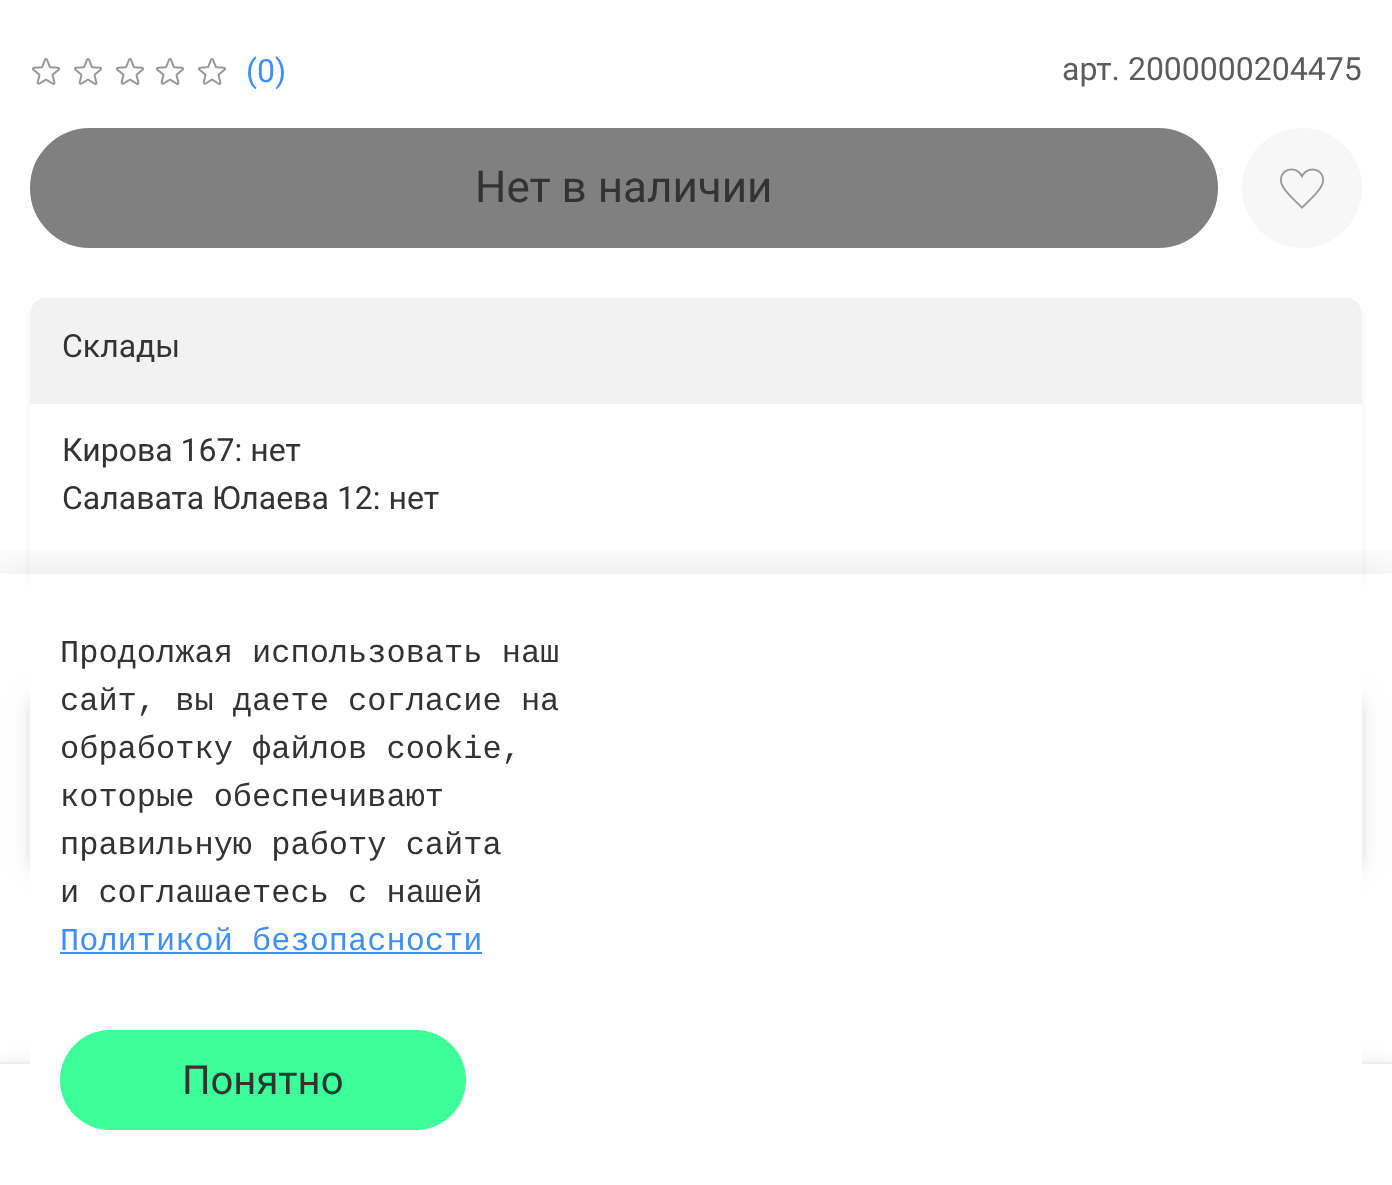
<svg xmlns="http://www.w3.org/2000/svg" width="1392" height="1185">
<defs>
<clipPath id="clip1"><path d="M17 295h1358v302h-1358zm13 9h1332v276h-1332z" clip-rule="evenodd"/></clipPath>
<clipPath id="clip2"><rect x="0" y="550" width="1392" height="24"/></clipPath>
</defs>
<rect width="100%" height="100%" fill="#fff"/>
<image x="32" y="58" width="28" height="27" href="media/1.png"/>
<image x="74" y="58" width="28" height="27" href="media/1.png"/>
<image x="116" y="58" width="28" height="27" href="media/1.png"/>
<image x="156" y="58" width="28" height="27" href="media/1.png"/>
<image x="198" y="58" width="28" height="27" href="media/1.png"/>
<text x="246" y="82" style="font-family:Roboto;font-size:32px;fill:#418ffd">(0)</text>
<text x="1062" y="80" style="font-family:Roboto;font-size:32px;fill:#5c5c5c">арт. 2000000204475</text>
<rect x="31" y="129" width="1186" height="118" rx="59" fill="#808080" stroke="#808080" stroke-width="2"/>
<text x="475" y="202" style="font-family:Roboto;font-size:44px;fill:#333">Нет в наличии</text>
<circle cx="1302" cy="188" r="60" fill="#f7f7f7"/>
<image x="1280" y="168" width="44" height="41" href="media/2.png"/>
<g clip-path="url(#clip1)">
<rect x="30" y="308" width="1332" height="276" fill="#0000000d" filter="blur(4px)"/>
</g>
<path d="M46 298h1300c9 0 16 7 16 16v90h-1332v-90c0-9 7-16 16-16z" fill="#f2f2f2"/>
<text x="62" y="357" style="font-family:Roboto;font-size:32px;fill:#333">Склады</text>
<text x="62" y="461" style="font-family:Roboto;font-size:32px;fill:#333">Кирова 167: нет</text>
<text x="62" y="509" style="font-family:Roboto;font-size:32px;fill:#333">Салавата Юлаева 12: нет</text>
<rect x="30" y="692" width="1332" height="182" rx="16" fill="#0000000d" filter="blur(16px)"/>
<rect x="30" y="692" width="1332" height="182" rx="16" fill="#0000000d" filter="blur(8px)"/>
<rect x="30" y="692" width="1332" height="182" rx="16" fill="#0000000d" filter="blur(4px)"/>
<rect y="1066" width="1392" height="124" fill="#0000001f" filter="blur(10px)"/>
<rect y="1064" width="1392" height="121" fill="#fff"/>
<rect y="1062" width="1392" height="2" fill="#ededed"/>
<g clip-path="url(#clip2)">
<rect x="-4" y="568" width="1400" height="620" fill="#00000017" filter="blur(23px)"/>
</g>
<rect x="30" y="580" width="1332" height="484" fill="#fff"/>
<text x="60" y="662" style="font-family:Liberation Mono;font-size:32px;fill:#333">Продолжая использовать наш</text>
<text x="60" y="710" style="font-family:Liberation Mono;font-size:32px;fill:#333">сайт, вы даете согласие на</text>
<text x="60" y="758" style="font-family:Liberation Mono;font-size:32px;fill:#333">обработку файлов cookie,</text>
<text x="60" y="806" style="font-family:Liberation Mono;font-size:32px;fill:#333">которые обеспечивают</text>
<text x="60" y="854" style="font-family:Liberation Mono;font-size:32px;fill:#333">правильную работу сайта</text>
<text x="60" y="902" style="font-family:Liberation Mono;font-size:32px;fill:#333">и соглашаетесь с нашей</text>
<text x="60" y="950" style="font-family:Liberation Mono;font-size:32px;fill:#418ffd">Политикой безопасности</text>
<rect x="60" y="952" width="422" height="2" fill="#418ffd"/>
<rect x="60" y="1030" width="406" height="100" rx="50" fill="#3cff9a"/>
<text x="182" y="1094" style="font-family:Roboto;font-size:40px;fill:#333">Понятно</text>
</svg>
